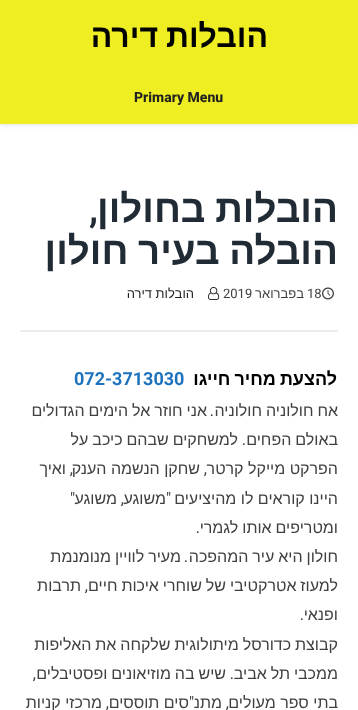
<svg xmlns="http://www.w3.org/2000/svg" width="358" height="710">
<rect width="100%" height="100%" fill="#fff"/>
<rect y="1" width="358" height="124" fill="#0000001a" filter="blur(2.5px)"/>
<rect width="358" height="124" fill="#ee2"/>
<text x="268" y="47" word-spacing="-1" style="font-family:Liberation Sans;font-size:32px;font-weight:bold;direction:rtl;fill:#000">הובלות דירה</text>
<text x="134" y="102" style="font-family:Roboto;font-size:14px;font-weight:800;fill:#222">Primary Menu</text>
<rect x="20" y="330" width="318" height="2" fill="#ececec"/>
<text x="338" y="222" word-spacing="-1" style="font-family:Liberation Sans;font-size:38.5px;font-weight:bold;direction:rtl;fill:#212b35">הובלות בחולון</text>
<text x="98" y="222" style="font-family:Roboto;font-size:38.5px;font-weight:600;direction:rtl;fill:#212b35">,</text>
<text x="338" y="264" word-spacing="-1" style="font-family:Liberation Sans;font-size:38.5px;font-weight:bold;direction:rtl;fill:#212b35">הובלה בעיר חולון</text>
<image x="322" y="287" width="12" height="13" href="media/1.png"/>
<text x="307" y="298" style="font-family:Roboto;font-size:13px;fill:#404040">18</text>
<text x="304" y="298" style="font-family:Liberation Sans;font-size:13px;direction:rtl;fill:#404040">בפברואר</text>
<text x="223" y="298" style="font-family:Roboto;font-size:13px;fill:#404040">2019</text>
<image x="208" y="286" width="12" height="14" href="media/2.png"/>
<text x="194" y="298" style="font-family:Liberation Sans;font-size:13px;direction:rtl;fill:#222">הובלות דירה</text>
<text x="337" y="385" word-spacing="-1" style="font-family:Liberation Sans;font-size:18px;font-weight:bold;direction:rtl;fill:#000">להצעת מחיר חייגו</text>
<text x="74" y="385" style="font-family:Roboto;font-size:18px;font-weight:bold;fill:#1e73be">072-3713030</text>
<text x="338" y="416" word-spacing="-0.5" style="font-family:Liberation Sans;font-size:16px;direction:rtl;fill:#404040">אח חולוניה חולוניה</text>
<text x="214" y="416" style="font-family:Roboto;font-size:16px;direction:rtl;fill:#404040">.</text>
<text x="207" y="416" word-spacing="-0.5" style="font-family:Liberation Sans;font-size:16px;direction:rtl;fill:#404040">אני חוזר אל הימים הגדולים</text>
<text x="338" y="445" word-spacing="-0.5" style="font-family:Liberation Sans;font-size:16px;direction:rtl;fill:#404040">באולם הפחים</text>
<text x="246" y="445" style="font-family:Roboto;font-size:16px;direction:rtl;fill:#404040">.</text>
<text x="238" y="445" word-spacing="-0.5" style="font-family:Liberation Sans;font-size:16px;direction:rtl;fill:#404040">למשחקים שבהם כיכב על</text>
<text x="338" y="474" style="font-family:Liberation Sans;font-size:16px;direction:rtl;fill:#404040">הפרקט מייקל קרטר</text>
<text x="207" y="474" style="font-family:Roboto;font-size:16px;direction:rtl;fill:#404040">,</text>
<text x="200" y="474" style="font-family:Liberation Sans;font-size:16px;direction:rtl;fill:#404040">שחקן הנשמה הענק</text>
<text x="73" y="474" style="font-family:Roboto;font-size:16px;direction:rtl;fill:#404040">,</text>
<text x="66" y="474" style="font-family:Liberation Sans;font-size:16px;direction:rtl;fill:#404040">ואיך</text>
<text x="338" y="504" style="font-family:Liberation Sans;font-size:16px;direction:rtl;fill:#404040">היינו קוראים לו מהיציעים</text>
<text x="171" y="504" style="font-family:Roboto;font-size:16px;direction:rtl;fill:#404040">"</text>
<text x="166" y="504" style="font-family:Liberation Sans;font-size:16px;direction:rtl;fill:#404040">משוגע</text>
<text x="124" y="504" style="font-family:Roboto;font-size:16px;direction:rtl;fill:#404040">,</text>
<text x="117" y="504" style="font-family:Liberation Sans;font-size:16px;direction:rtl;fill:#404040">משוגע</text>
<text x="75" y="504" style="font-family:Roboto;font-size:16px;direction:rtl;fill:#404040">"</text>
<text x="338" y="533" word-spacing="-0.5" style="font-family:Liberation Sans;font-size:16px;direction:rtl;fill:#404040">ומטריפים אותו לגמרי</text>
<text x="200" y="533" style="font-family:Roboto;font-size:16px;direction:rtl;fill:#404040">.</text>
<text x="338" y="562" word-spacing="-0.5" style="font-family:Liberation Sans;font-size:16px;direction:rtl;fill:#404040">חולון היא עיר המהפכה</text>
<text x="188" y="562" style="font-family:Roboto;font-size:16px;direction:rtl;fill:#404040">.</text>
<text x="181" y="562" word-spacing="-0.5" style="font-family:Liberation Sans;font-size:16px;direction:rtl;fill:#404040">מעיר לוויין מנומנמת</text>
<text x="338" y="591" word-spacing="-0.5" style="font-family:Liberation Sans;font-size:16px;direction:rtl;fill:#404040">למעוז אטרקטיבי של שוחרי איכות חיים</text>
<text x="81" y="591" style="font-family:Liberation Sans;font-size:16px;direction:rtl;fill:#404040">תרבות</text>
<text x="88" y="591" style="font-family:Roboto;font-size:16px;direction:rtl;fill:#404040">,</text>
<text x="338" y="620" style="font-family:Liberation Sans;font-size:16px;direction:rtl;fill:#404040">ופנאי</text>
<text x="304" y="620" style="font-family:Roboto;font-size:16px;direction:rtl;fill:#404040">.</text>
<text x="338" y="650" word-spacing="-0.5" style="font-family:Liberation Sans;font-size:16px;direction:rtl;fill:#404040">קבוצת כדורסל מיתולוגית שלקחה את האליפות</text>
<text x="338" y="679" word-spacing="-0.5" style="font-family:Liberation Sans;font-size:16px;direction:rtl;fill:#404040">ממכבי תל אביב</text>
<text x="234" y="679" style="font-family:Roboto;font-size:16px;direction:rtl;fill:#404040">.</text>
<text x="226" y="679" word-spacing="-0.5" style="font-family:Liberation Sans;font-size:16px;direction:rtl;fill:#404040">שיש בה מוזיאונים ופסטיבלים</text>
<text x="36" y="679" style="font-family:Roboto;font-size:16px;direction:rtl;fill:#404040">,</text>
<text x="338" y="708" style="font-family:Liberation Sans;font-size:16px;direction:rtl;fill:#404040">בתי ספר מעולים</text>
<text x="229" y="708" style="font-family:Roboto;font-size:16px;direction:rtl;fill:#404040">,</text>
<text x="222" y="708" style="font-family:Liberation Sans;font-size:16px;direction:rtl;fill:#404040">מתנ</text>
<text x="194" y="708" style="font-family:Roboto;font-size:16px;direction:rtl;fill:#404040">"</text>
<text x="189" y="708" style="font-family:Liberation Sans;font-size:16px;direction:rtl;fill:#404040">סים תוססים</text>
<text x="109" y="708" style="font-family:Roboto;font-size:16px;direction:rtl;fill:#404040">,</text>
<text x="102" y="708" style="font-family:Liberation Sans;font-size:16px;direction:rtl;fill:#404040">מרכזי קניות</text>
</svg>
